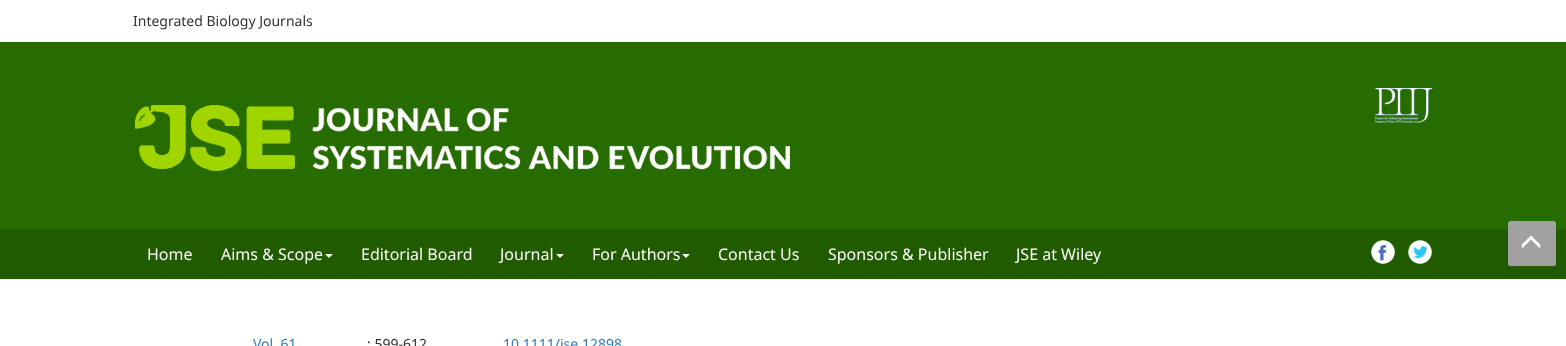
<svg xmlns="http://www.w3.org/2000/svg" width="1566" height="346">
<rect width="100%" height="100%" fill="#fff"/>
<rect y="42" width="1566" height="187" fill="#276c00"/>
<text x="133" y="26" style="font-family:Noto Sans;font-size:14px;fill:#333">Integrated Biology Journals</text>
<image x="135" y="105" width="655" height="66" href="media/1.png"/>
<image x="1375" y="88" width="58" height="36" href="media/2.png"/>
<rect y="229" width="1566" height="50" fill="#215b00"/>
<text x="147" y="260" style="font-family:Noto Sans;font-size:16px;fill:#fff">Home</text>
<text x="221" y="260" style="font-family:Noto Sans;font-size:16px;fill:#fff">Aims &amp; Scope</text>
<path d="M325 254h8l-4 4z" fill="#fff"/>
<text x="361" y="260" style="font-family:Noto Sans;font-size:16px;fill:#fff">Editorial Board</text>
<text x="500" y="260" style="font-family:Noto Sans;font-size:16px;fill:#fff">Journal</text>
<path d="M556 254h8l-4 4z" fill="#fff"/>
<text x="592" y="260" style="font-family:Noto Sans;font-size:16px;fill:#fff">For Authors</text>
<path d="M682 254h8l-4 4z" fill="#fff"/>
<text x="718" y="260" style="font-family:Noto Sans;font-size:16px;fill:#fff">Contact Us</text>
<text x="828" y="260" style="font-family:Noto Sans;font-size:16px;fill:#fff">Sponsors &amp; Publisher</text>
<text x="1016" y="260" style="font-family:Noto Sans;font-size:16px;fill:#fff">JSE at Wiley</text>
<image x="1371" y="240" width="24" height="24" href="media/3.png"/>
<image x="1408" y="240" width="24" height="24" href="media/4.png"/>
<rect x="1508" y="221" width="48" height="45" rx="2.5" fill="#a1a1a1"/>
<image x="1521" y="235" width="20" height="14" href="media/5.png"/>
<text x="253" y="349" style="font-family:Noto Sans;font-size:14px;fill:#337ab7">Vol. 61</text>
<text x="367" y="349" style="font-family:Noto Sans;font-size:14px;fill:#333">: 599-612</text>
<text x="503" y="349" style="font-family:Noto Sans;font-size:14px;fill:#337ab7">10.1111/jse.12898</text>
</svg>
